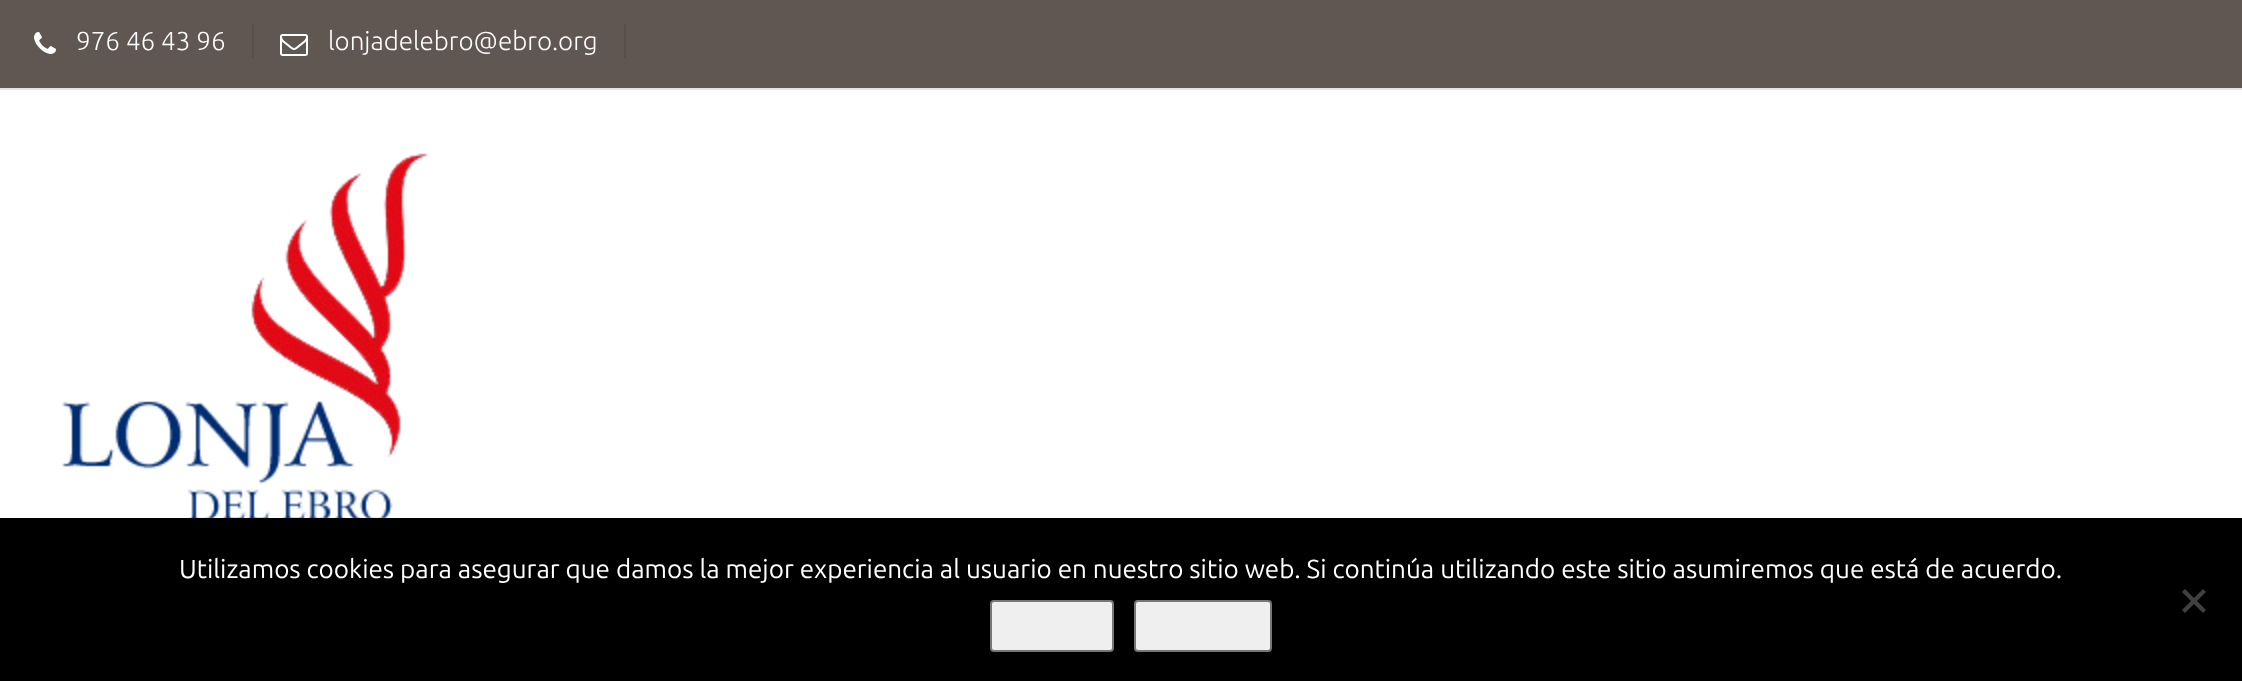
<svg xmlns="http://www.w3.org/2000/svg" width="2242" height="681">
<rect width="100%" height="100%" fill="#fff"/>
<rect width="2242" height="88" fill="#605652"/>
<rect y="88" width="2242" height="2" fill="#e4e4e4"/>
<rect x="252" y="24" width="2" height="34" fill="#584f4b"/>
<image x="34" y="32" width="22" height="22" href="media/1.png"/>
<text x="76" y="50" style="font-family:Ubuntu;font-size:26px;font-weight:300;fill:#fff">976 46 43 96</text>
<rect x="624" y="24" width="2" height="34" fill="#584f4b"/>
<image x="280" y="34" width="28" height="22" href="media/2.png"/>
<text x="328" y="50" style="font-family:Ubuntu;font-size:26px;font-weight:300;fill:#fff">lonjadelebro@ebro.org</text>
<image x="61" y="153" width="368" height="365" href="media/3.png"/>
<rect y="518" width="2242" height="163" fill="#000"/>
<text x="179" y="578" style="font-family:Ubuntu;font-size:26px;fill:#fff">Utilizamos cookies para asegurar que damos la mejor experiencia al usuario en nuestro sitio web. Si continúa utilizando este sitio asumiremos que está de acuerdo.</text>
<rect x="991" y="601" width="122" height="50" rx="3" fill="#efefef" stroke="#767676" stroke-width="2"/>
<rect x="1135" y="601" width="136" height="50" rx="3" fill="#efefef" stroke="#767676" stroke-width="2"/>
<path d="M2203 589l3 3l-21 21l-3-3z" fill="#404040"/>
<path d="M2182 592l3-3l21 21l-3 3z" fill="#404040"/>
</svg>
